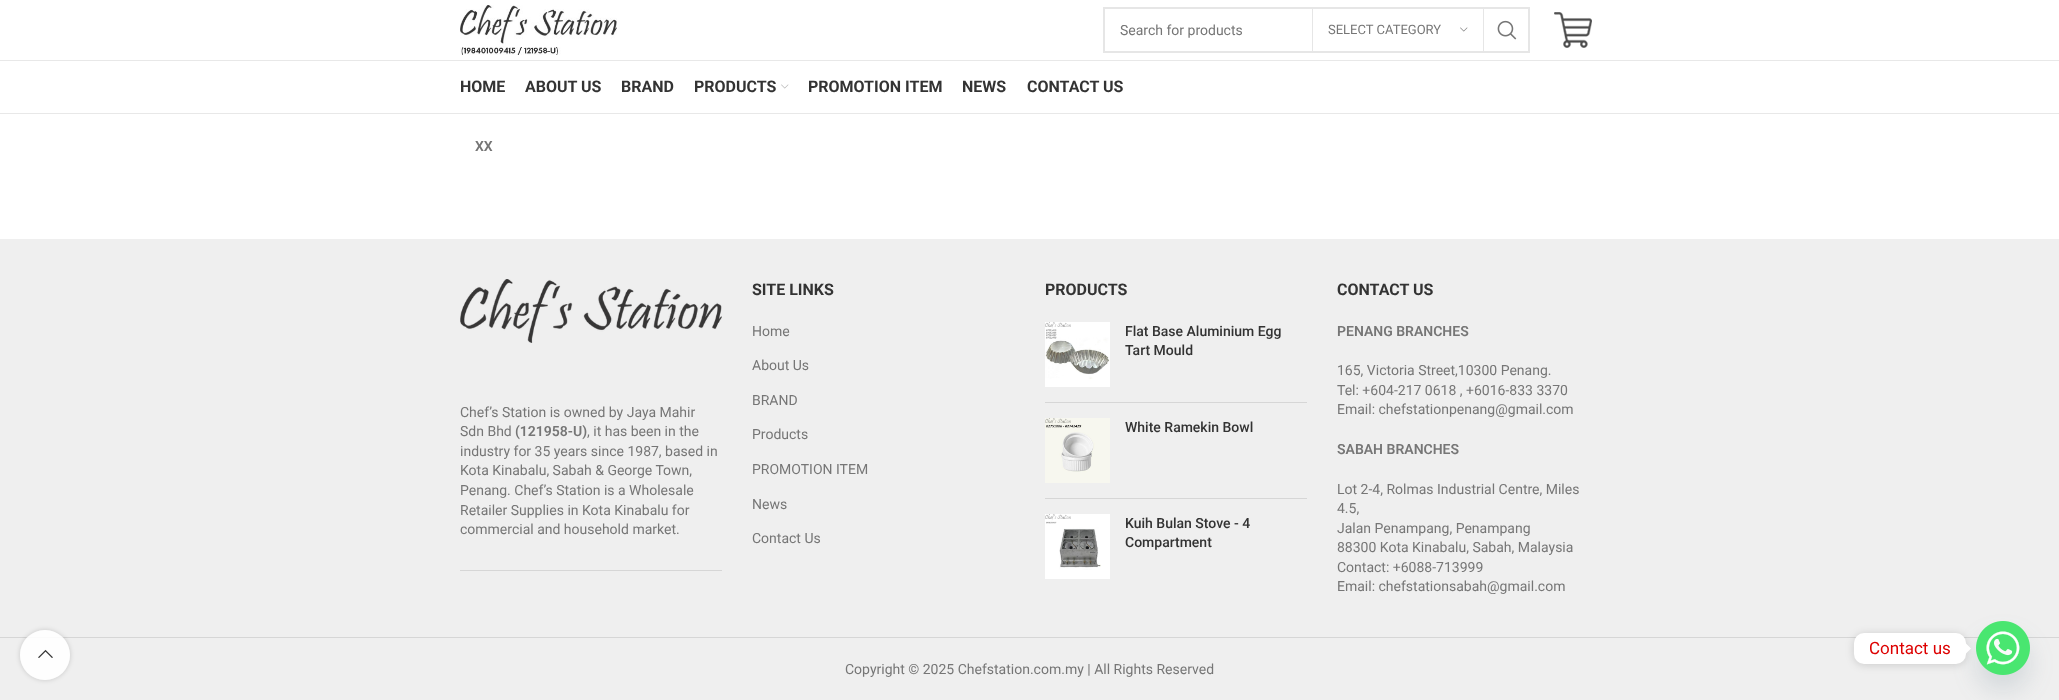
<svg xmlns="http://www.w3.org/2000/svg" width="2059" height="700">
<defs>
<clipPath id="clip1"><path d="M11 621h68v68h-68zm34 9c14 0 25 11 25 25c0 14-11 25-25 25c-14 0-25-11-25-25c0-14 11-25 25-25z" clip-rule="evenodd"/></clipPath>
</defs>
<rect width="100%" height="100%" fill="#fff"/>
<rect y="239" width="2059" height="461" fill="#efefef"/>
<rect y="637" width="2059" height="1" fill="#d6d6d6"/>
<g clip-path="url(#clip1)">
<rect x="20" y="630" width="50" height="50" rx="25" fill="#0000002b" filter="blur(2.5px)"/>
</g>
<circle cx="45" cy="655" r="25" fill="#ffffffe6"/>
<image x="38" y="649" width="15" height="9" href="media/1.png"/>
<rect y="60" width="2059" height="1" fill="#e8e8e8"/>
<image x="460" y="5" width="157" height="50" href="media/2.png"/>
<rect x="1104" y="8" width="425" height="44" fill="none" stroke="#e6e6e6" stroke-width="2"/>
<text x="1120" y="35" style="font-family:Roboto;font-size:14px;fill:#767676">Search for products</text>
<rect x="1483" y="9" width="1" height="42" fill="#e6e6e6"/>
<rect x="1312" y="9" width="1" height="42" fill="#e6e6e6"/>
<text x="1328" y="34" style="font-family:Roboto;font-size:13px;fill:#767676">SELECT CATEGORY</text>
<image x="1460" y="27" width="8" height="5" href="media/3.png"/>
<image x="1497" y="20" width="20" height="20" href="media/4.png"/>
<image x="1554" y="12" width="38" height="36" href="media/5.png"/>
<rect y="113" width="2059" height="1" fill="#e8e8e8"/>
<text x="460" y="92" style="font-family:Roboto;font-size:16px;font-weight:bold;fill:#333">HOME</text>
<text x="525" y="92" style="font-family:Roboto;font-size:16px;font-weight:bold;fill:#333">ABOUT US</text>
<text x="621" y="92" style="font-family:Roboto;font-size:16px;font-weight:bold;fill:#333">BRAND</text>
<text x="694" y="92" style="font-family:Roboto;font-size:16px;font-weight:bold;fill:#333">PRODUCTS</text>
<image x="781" y="84" width="8" height="5" href="media/6.png"/>
<text x="808" y="92" style="font-family:Roboto;font-size:16px;font-weight:bold;fill:#333">PROMOTION ITEM</text>
<text x="962" y="92" style="font-family:Roboto;font-size:16px;font-weight:bold;fill:#333">NEWS</text>
<text x="1027" y="92" style="font-family:Roboto;font-size:16px;font-weight:bold;fill:#333">CONTACT US</text>
<text x="475" y="151" style="font-family:Roboto;font-size:14px;font-weight:600;fill:#767676">XX</text>
<rect x="460" y="570" width="262" height="1" fill="#d6d6d6"/>
<image x="460" y="279" width="262" height="64" href="media/7.png"/>
<text x="460" y="417" style="font-family:Roboto;font-size:14px;fill:#767676">Chef’s Station is owned by Jaya Mahir</text>
<text x="460" y="436" style="font-family:Roboto;font-size:14px;fill:#767676">Sdn Bhd</text>
<text x="515" y="436" style="font-family:Roboto;font-size:14px;font-weight:600;fill:#767676">(121958-U)</text>
<text x="587" y="436" style="font-family:Roboto;font-size:14px;fill:#767676">, it has been in the</text>
<text x="460" y="456" style="font-family:Roboto;font-size:14px;fill:#767676">industry for 35 years since 1987, based in</text>
<text x="460" y="475" style="font-family:Roboto;font-size:14px;fill:#767676">Kota Kinabalu, Sabah &amp; George Town,</text>
<text x="460" y="495" style="font-family:Roboto;font-size:14px;fill:#767676">Penang. Chef’s Station is a Wholesale</text>
<text x="460" y="515" style="font-family:Roboto;font-size:14px;fill:#767676">Retailer Supplies in Kota Kinabalu for</text>
<text x="460" y="534" style="font-family:Roboto;font-size:14px;fill:#767676">commercial and household market.</text>
<text x="752" y="295" style="font-family:Roboto;font-size:16px;font-weight:bold;fill:#333">SITE LINKS</text>
<text x="752" y="336" style="font-family:Roboto;font-size:14px;fill:#767676">Home</text>
<text x="752" y="370" style="font-family:Roboto;font-size:14px;fill:#767676">About Us</text>
<text x="752" y="405" style="font-family:Roboto;font-size:14px;fill:#767676">BRAND</text>
<text x="752" y="439" style="font-family:Roboto;font-size:14px;fill:#767676">Products</text>
<text x="752" y="474" style="font-family:Roboto;font-size:14px;fill:#767676">PROMOTION ITEM</text>
<text x="752" y="509" style="font-family:Roboto;font-size:14px;fill:#767676">News</text>
<text x="752" y="543" style="font-family:Roboto;font-size:14px;fill:#767676">Contact Us</text>
<text x="1045" y="295" style="font-family:Roboto;font-size:16px;font-weight:bold;fill:#333">PRODUCTS</text>
<rect x="1045" y="402" width="262" height="1" fill="#d6d6d6"/>
<image x="1045" y="322" width="65" height="65" href="media/8.png"/>
<text x="1125" y="336" style="font-family:Roboto;font-size:14px;font-weight:500;fill:#333">Flat Base Aluminium Egg</text>
<text x="1125" y="355" style="font-family:Roboto;font-size:14px;font-weight:500;fill:#333">Tart Mould</text>
<rect x="1045" y="498" width="262" height="1" fill="#d6d6d6"/>
<image x="1045" y="418" width="65" height="65" href="media/9.png"/>
<text x="1125" y="432" style="font-family:Roboto;font-size:14px;font-weight:500;fill:#333">White Ramekin Bowl</text>
<image x="1045" y="514" width="65" height="65" href="media/10.png"/>
<text x="1125" y="528" style="font-family:Roboto;font-size:14px;font-weight:500;fill:#333">Kuih Bulan Stove - 4</text>
<text x="1125" y="547" style="font-family:Roboto;font-size:14px;font-weight:500;fill:#333">Compartment</text>
<text x="1337" y="295" style="font-family:Roboto;font-size:16px;font-weight:bold;fill:#333">CONTACT US</text>
<text x="1337" y="336" style="font-family:Roboto;font-size:14px;font-weight:600;fill:#767676">PENANG BRANCHES</text>
<text x="1337" y="375" style="font-family:Roboto;font-size:14px;fill:#767676">165, Victoria Street,10300 Penang.</text>
<text x="1337" y="395" style="font-family:Roboto;font-size:14px;fill:#767676">Tel: +604-217 0618 , +6016-833 3370</text>
<text x="1337" y="414" style="font-family:Roboto;font-size:14px;fill:#767676">Email: chefstationpenang@gmail.com</text>
<text x="1337" y="454" style="font-family:Roboto;font-size:14px;font-weight:600;fill:#767676">SABAH BRANCHES</text>
<text x="1337" y="494" style="font-family:Roboto;font-size:14px;fill:#767676">Lot 2-4, Rolmas Industrial Centre, Miles</text>
<text x="1337" y="513" style="font-family:Roboto;font-size:14px;fill:#767676">4.5,</text>
<text x="1337" y="533" style="font-family:Roboto;font-size:14px;fill:#767676">Jalan Penampang, Penampang</text>
<text x="1337" y="552" style="font-family:Roboto;font-size:14px;fill:#767676">88300 Kota Kinabalu, Sabah, Malaysia</text>
<text x="1337" y="572" style="font-family:Roboto;font-size:14px;fill:#767676">Contact: +6088-713999</text>
<text x="1337" y="591" style="font-family:Roboto;font-size:14px;fill:#767676">Email: chefstationsabah@gmail.com</text>
<text x="845" y="674" style="font-family:Roboto;font-size:14px;fill:#767676">Copyright © 2025 Chefstation.com.my | All Rights Reserved</text>
<rect x="1976" y="637" width="54" height="54" rx="27" fill="#49687e29" filter="blur(12px)"/>
<image x="1976" y="621" width="54" height="54" href="media/11.png"/>
<rect x="1854" y="634" width="112" height="31" rx="10" fill="#00000026" filter="blur(4px)"/>
<rect x="1854" y="633" width="112" height="31" rx="10" fill="#fff"/>
<text x="1869" y="654" style="font-family:Roboto;font-size:17px;fill:#d00">Contact us</text>
<path d="M1966 653.5v-10l5 5z" fill="#fff"/>
</svg>
